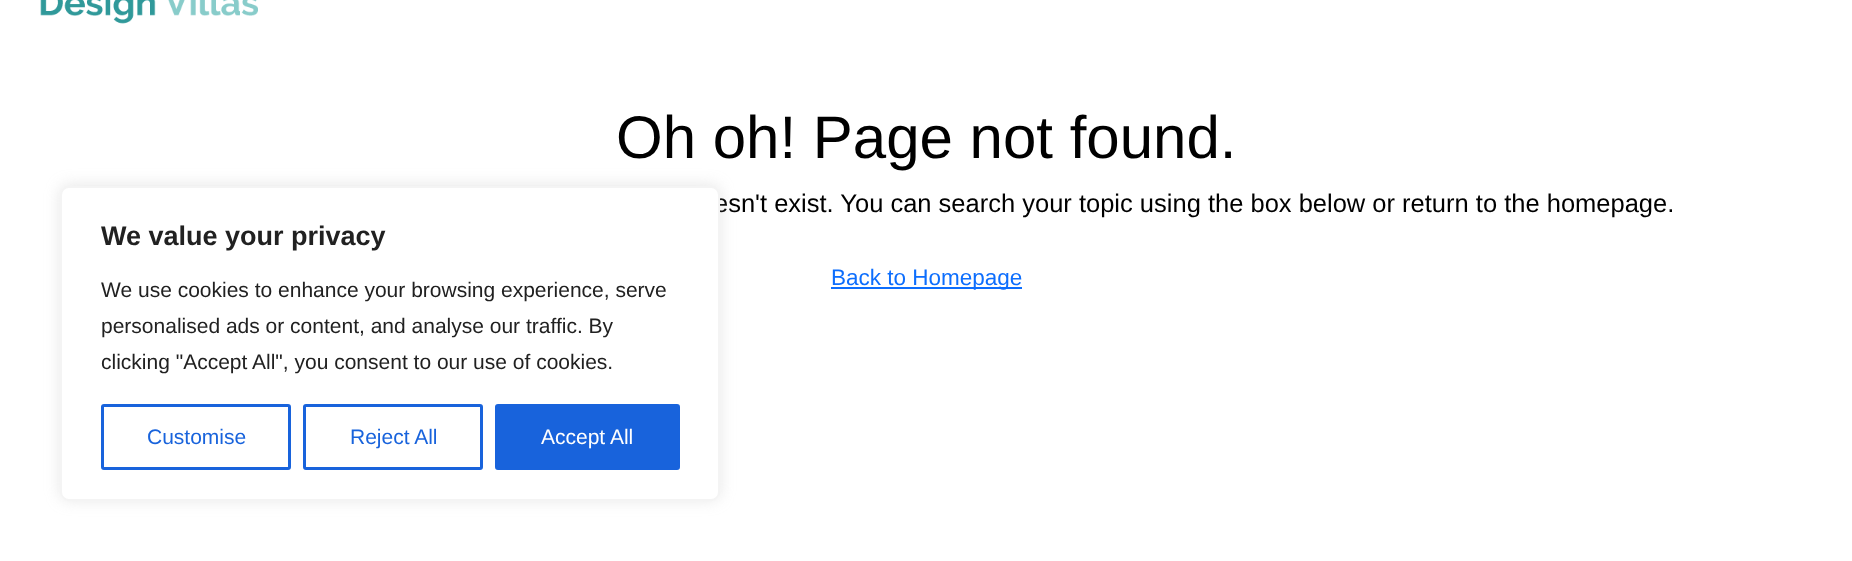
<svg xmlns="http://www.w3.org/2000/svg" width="1852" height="561">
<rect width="100%" height="100%" fill="#fff"/>
<image x="40" y="0" width="218" height="24" href="media/1.png"/>
<text x="616" y="158" style="font-family:Liberation Sans;font-size:60px;fill:#000">Oh oh! Page not found.</text>
<text x="714" y="212" style="font-family:Liberation Sans;font-size:25.5px;fill:#000">esn't exist. You can search your topic using the box below or return to the homepage.</text>
<rect x="831" y="287" width="191" height="2" fill="#0d6efd"/>
<text x="831" y="285" style="font-family:Liberation Sans;font-size:22.5px;fill:#0d6efd">Back to Homepage</text>
<rect x="60" y="185" width="660" height="315" rx="9" fill="#acabab4d" filter="blur(7.5px)"/>
<rect x="61" y="187" width="658" height="313" rx="8" fill="#fff" stroke="#f4f4f4" stroke-width="2"/>
<text x="101" y="245" style="font-family:Liberation Sans;font-size:27px;font-weight:bold;fill:#212121">We value your privacy</text>
<text x="101" y="297" style="font-family:Liberation Sans;font-size:21px;fill:#212121">We use cookies to enhance your browsing experience, serve</text>
<text x="101" y="333" style="font-family:Liberation Sans;font-size:21px;fill:#212121">personalised ads or content, and analyse our traffic. By</text>
<text x="101" y="369" style="font-family:Liberation Sans;font-size:21px;fill:#212121">clicking "Accept All", you consent to our use of cookies.</text>
<rect x="102.5" y="405.5" width="187" height="63" rx="1.5" fill="none" stroke="#1863dc" stroke-width="3"/>
<text x="147" y="444" style="font-family:Liberation Sans;font-size:21px;fill:#1863dc">Customise</text>
<rect x="304.5" y="405.5" width="177" height="63" rx="1.5" fill="none" stroke="#1863dc" stroke-width="3"/>
<text x="350" y="444" style="font-family:Liberation Sans;font-size:21px;fill:#1863dc">Reject All</text>
<rect x="496.5" y="405.5" width="182" height="63" rx="1.5" fill="#1863dc" stroke="#1863dc" stroke-width="3"/>
<text x="541" y="444" style="font-family:Liberation Sans;font-size:21px;fill:#fff">Accept All</text>
</svg>
